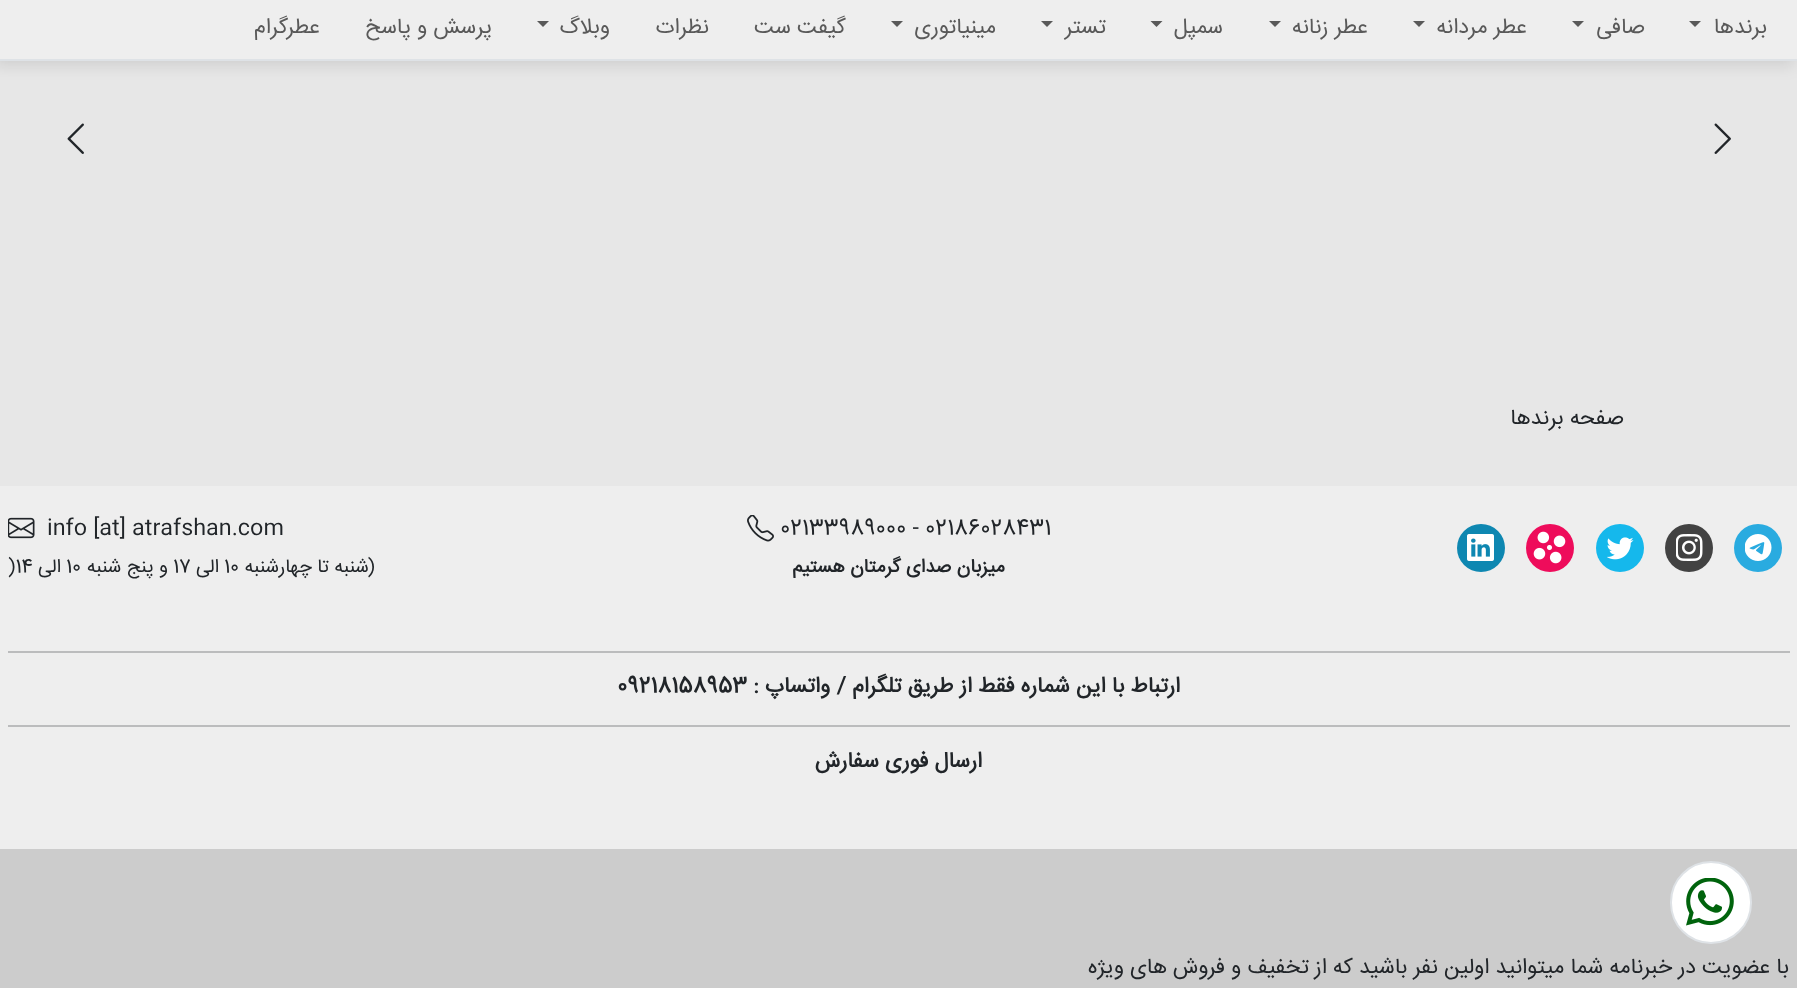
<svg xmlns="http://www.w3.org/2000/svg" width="1797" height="988">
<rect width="100%" height="100%" fill="#eee"/>
<rect y="61" width="1797" height="425" fill="#e7e7e7"/>
<rect x="-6" y="3" width="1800" height="63" fill="#0000001a" filter="blur(7.5px)"/>
<rect width="1797" height="59" fill="#eee"/>
<rect y="59" width="1797" height="2" fill="#dee2e6"/>
<text x="1767" y="33" style="font-family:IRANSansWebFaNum;font-size:21.7px;direction:rtl;fill:#595959">برندها</text>
<path d="M1689 21h12l-6 6z" fill="#595959"/>
<text x="1645" y="33" style="font-family:IRANSansWebFaNum;font-size:21.7px;direction:rtl;fill:#595959">صافی</text>
<path d="M1572 21h12l-6 6z" fill="#595959"/>
<text x="1527" y="33" style="font-family:IRANSansWebFaNum;font-size:21.7px;direction:rtl;fill:#595959">عطر مردانه</text>
<path d="M1413 21h12l-6 6z" fill="#595959"/>
<text x="1368" y="33" style="font-family:IRANSansWebFaNum;font-size:21.7px;direction:rtl;fill:#595959">عطر زنانه</text>
<path d="M1269 21h12l-6 6z" fill="#595959"/>
<text x="1223" y="33" style="font-family:IRANSansWebFaNum;font-size:21.7px;direction:rtl;fill:#595959">سمپل</text>
<path d="M1150.5 21h12l-6 6z" fill="#595959"/>
<text x="1106" y="33" style="font-family:IRANSansWebFaNum;font-size:21.7px;direction:rtl;fill:#595959">تستر</text>
<path d="M1041 21h12l-6 6z" fill="#595959"/>
<text x="996" y="33" style="font-family:IRANSansWebFaNum;font-size:21.7px;direction:rtl;fill:#595959">مینیاتوری</text>
<path d="M891 21h12l-6 6z" fill="#595959"/>
<text x="846" y="33" style="font-family:IRANSansWebFaNum;font-size:21.7px;direction:rtl;fill:#595959">گیفت ست</text>
<text x="709" y="33" style="font-family:IRANSansWebFaNum;font-size:21.7px;direction:rtl;fill:#595959">نظرات</text>
<text x="610" y="33" style="font-family:IRANSansWebFaNum;font-size:21.7px;direction:rtl;fill:#595959">وبلاگ</text>
<path d="M537 21h12l-6 6z" fill="#595959"/>
<text x="492" y="33" style="font-family:IRANSansWebFaNum;font-size:21.7px;direction:rtl;fill:#595959">پرسش و پاسخ</text>
<text x="320" y="33" style="font-family:IRANSansWebFaNum;font-size:21.7px;direction:rtl;fill:#595959">عطرگرام</text>
<image x="1714" y="123" width="17" height="31" href="media/1.png"/>
<image x="67" y="123" width="17" height="31" href="media/2.png"/>
<text x="1624" y="424" style="font-family:IRANSansWebFaNum;font-size:21.7px;direction:rtl;fill:#212529">صفحه برندها</text>
<circle cx="1758" cy="548" r="24" fill="#29abe0"/>
<image x="1745" y="534" width="27" height="27" href="media/3.png"/>
<circle cx="1689" cy="548" r="24" fill="#424242"/>
<image x="1676" y="534" width="27" height="27" href="media/4.png"/>
<circle cx="1620" cy="548" r="24" fill="#15b8ec"/>
<image x="1607" y="537" width="27" height="23" href="media/5.png"/>
<circle cx="1550" cy="548" r="24" fill="#ee0c5b"/>
<image x="1533" y="531" width="33" height="33" href="media/6.png"/>
<circle cx="1481" cy="548" r="24" fill="#0e87b1"/>
<image x="1467" y="534" width="27" height="27" href="media/7.png"/>
<text x="780" y="534" style="font-family:IRANSansWebFaNum;font-size:21.7px;fill:#212529">02133989000 - 02186028431</text>
<image x="747" y="515" width="27" height="27" href="media/8.png"/>
<text x="1005" y="572" style="font-family:IRANSansWebFaNum;font-size:19px;font-weight:bold;direction:rtl;fill:#212529">میزبان صدای گرمتان هستیم</text>
<text x="47" y="534" style="font-family:IRANSansWebFaNum;font-size:21.7px;fill:#212529">info [at] atrafshan.com</text>
<image x="8" y="517" width="27" height="22" href="media/9.png"/>
<text x="375" y="572" style="font-family:IRANSansWebFaNum;font-size:19px;direction:rtl;fill:#212529">(شنبه تا چهارشنبه</text>
<text x="224" y="572" style="font-family:IRANSansWebFaNum;font-size:19px;fill:#212529">10</text>
<text x="219" y="572" style="font-family:IRANSansWebFaNum;font-size:19px;direction:rtl;fill:#212529">الی</text>
<text x="173" y="572" style="font-family:IRANSansWebFaNum;font-size:19px;fill:#212529">17</text>
<text x="168" y="572" style="font-family:IRANSansWebFaNum;font-size:19px;direction:rtl;fill:#212529">و پنج شنبه</text>
<text x="66" y="572" style="font-family:IRANSansWebFaNum;font-size:19px;fill:#212529">10</text>
<text x="61" y="572" style="font-family:IRANSansWebFaNum;font-size:19px;direction:rtl;fill:#212529">الی</text>
<text x="8" y="572" style="font-family:IRANSansWebFaNum;font-size:19px;fill:#212529">)14</text>
<rect x="8" y="651" width="1782" height="2" fill="#bbbcbd"/>
<text x="1180" y="692" style="font-family:IRANSansWebFaNum;font-size:21.7px;font-weight:bold;direction:rtl;fill:#212529">ارتباط با این شماره فقط از طریق تلگرام / واتساپ :</text>
<text x="617" y="692" style="font-family:IRANSansWebFaNum;font-size:21.7px;font-weight:bold;fill:#212529">09218158953</text>
<rect x="8" y="725" width="1782" height="2" fill="#bbbcbd"/>
<text x="982" y="767" style="font-family:IRANSansWebFaNum;font-size:21.7px;font-weight:bold;direction:rtl;fill:#212529">ارسال فوری سفارش</text>
<rect y="849" width="1797" height="139" fill="#ccc"/>
<text x="1789" y="973" style="font-family:IRANSansWebFaNum;font-size:21.7px;direction:rtl;fill:#212529">با عضویت در خبرنامه شما میتوانید اولین نفر باشید که از</text>
<text x="1309" y="973" style="font-family:IRANSansWebFaNum;font-size:21.7px;direction:rtl;fill:#212529">تخفیف و</text>
<text x="1225" y="973" style="font-family:IRANSansWebFaNum;font-size:21.7px;direction:rtl;fill:#212529">فروش</text>
<text x="1167" y="973" style="font-family:IRANSansWebFaNum;font-size:21.7px;direction:rtl;fill:#212529">های ویژه</text>
<rect x="1671" y="862" width="80" height="81" rx="40" fill="#fff" stroke="#dee2e6" stroke-width="2"/>
<image x="1686" y="878" width="48" height="48" href="media/10.png"/>
</svg>
